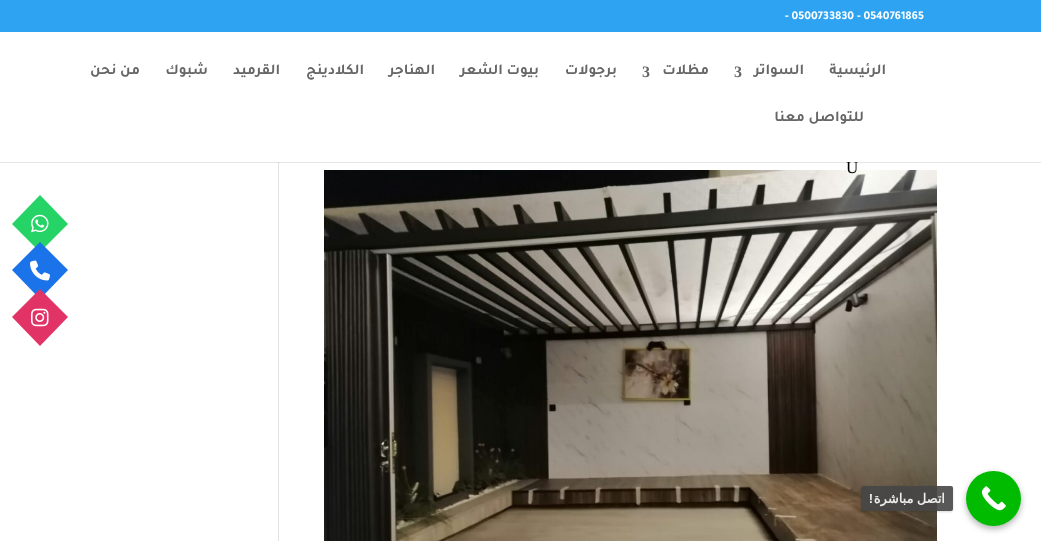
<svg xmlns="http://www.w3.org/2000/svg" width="1041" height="541">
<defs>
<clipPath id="clip1"><path d="M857 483h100v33h-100zm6 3h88c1 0 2 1 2 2v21c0 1-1 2-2 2h-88c-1 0-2-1-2-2v-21c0-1 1-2 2-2z" clip-rule="evenodd"/></clipPath>
</defs>
<rect width="100%" height="100%" fill="#fff"/>
<rect y="162" width="1041" height="1" fill="#e6e6e6"/>
<rect width="1041" height="32" fill="#2ea3f2"/>
<text x="785" y="19" style="font-family:Tajawal;font-size:12px;font-weight:bold;fill:#fff">- 0500733830 - 0540761865</text>
<text x="886" y="74" style="font-family:Tajawal;font-size:15px;font-weight:bold;direction:rtl;fill:#666">الرئيسية</text>
<text x="804" y="74" style="font-family:Tajawal;font-size:15px;font-weight:bold;direction:rtl;fill:#666">السواتر</text>
<text x="734" y="77" style="font-family:Liberation Serif;font-size:16px;font-weight:bold;fill:#666">3</text>
<text x="709" y="74" style="font-family:Tajawal;font-size:15px;font-weight:bold;direction:rtl;fill:#666">مظلات</text>
<text x="642" y="77" style="font-family:Liberation Serif;font-size:16px;font-weight:bold;fill:#666">3</text>
<text x="617" y="74" style="font-family:Tajawal;font-size:15px;font-weight:bold;direction:rtl;fill:#666">برجولات</text>
<text x="539" y="74" style="font-family:Tajawal;font-size:15px;font-weight:bold;direction:rtl;fill:#666">بيوت الشعر</text>
<text x="435" y="74" style="font-family:Tajawal;font-size:15px;font-weight:bold;direction:rtl;fill:#666">الهناجر</text>
<text x="364" y="74" style="font-family:Tajawal;font-size:15px;font-weight:bold;direction:rtl;fill:#666">الكلادينج</text>
<text x="280" y="74" style="font-family:Tajawal;font-size:15px;font-weight:bold;direction:rtl;fill:#666">القرميد</text>
<text x="208" y="74" style="font-family:Tajawal;font-size:15px;font-weight:bold;direction:rtl;fill:#666">شبوك</text>
<text x="140" y="74" style="font-family:Tajawal;font-size:15px;font-weight:bold;direction:rtl;fill:#666">من نحن</text>
<text x="864" y="121" style="font-family:Tajawal;font-size:15px;font-weight:bold;direction:rtl;fill:#666">للتواصل معنا</text>
<image x="324" y="170" width="613" height="371" href="media/1.png"/>
<text x="846" y="173" style="font-family:Liberation Serif;font-size:17px;fill:#000">U</text>
<rect x="278" y="163" width="1" height="378" fill="#e2e2e2"/>
<rect x="278" y="162" width="1" height="1" fill="#cbcbcb"/>
<path d="M40 195l28 29l-28 28l-28-28z" fill="#25d366"/>
<image x="31" y="214" width="18" height="19" href="media/2.png"/>
<path d="M40 242l28 28l-28 29l-28-29z" fill="#1a73e8"/>
<image x="30" y="260" width="20" height="21" href="media/3.png"/>
<path d="M40 289l28 28l-28 29l-28-29z" fill="#e23367"/>
<image x="31" y="308" width="18" height="19" href="media/4.png"/>
<rect x="966" y="474" width="55" height="55" rx="27.5" fill="#0000004d" filter="blur(3px)"/>
<circle cx="993.5" cy="498.5" r="27.5" fill="#0b0"/>
<image x="981" y="486" width="25" height="25" href="media/5.png"/>
<g clip-path="url(#clip1)">
<rect x="861" y="487" width="92" height="25" rx="2" fill="#00000026" filter="blur(1px)"/>
</g>
<rect x="861" y="486" width="92" height="25" rx="2" fill="#464646e6"/>
<text x="945" y="503" word-spacing="-1" style="font-family:DejaVu Sans;font-size:13px;font-weight:bold;direction:rtl;fill:#ececec">اتصل مباشرة</text>
<text x="873" y="503" style="font-family:Liberation Sans;font-size:13px;font-weight:bold;direction:rtl;fill:#ececec">!</text>
</svg>
